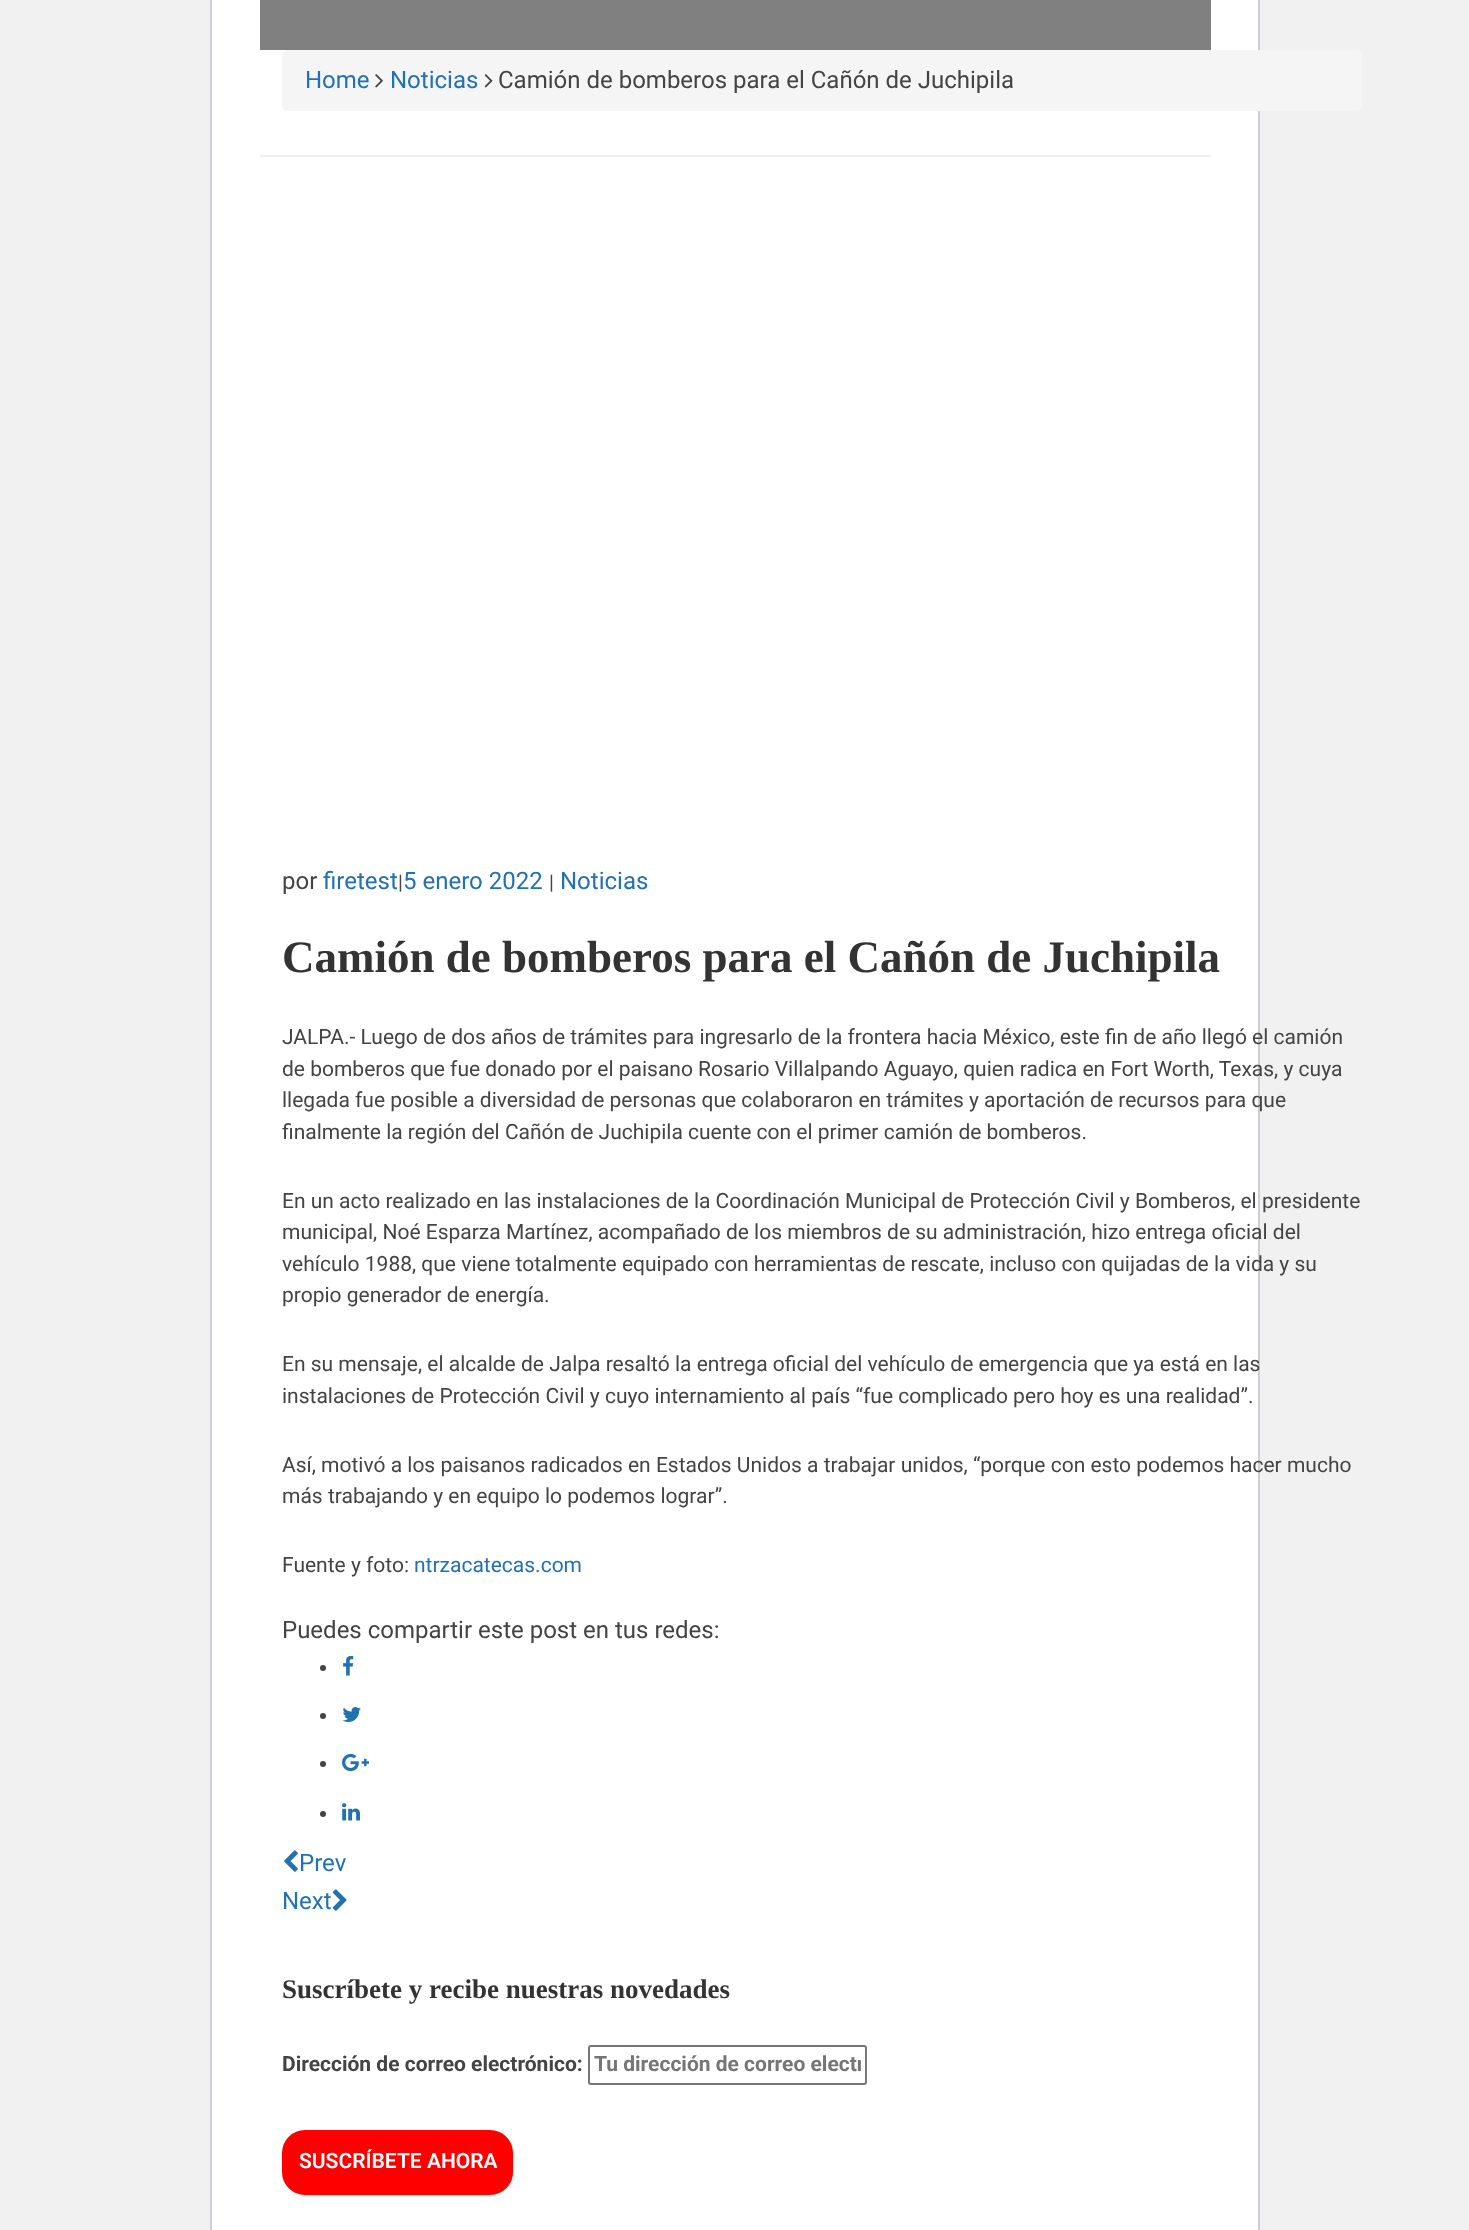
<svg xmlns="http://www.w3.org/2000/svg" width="1469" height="2230">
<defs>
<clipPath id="clip1"><rect x="594" y="2052" width="267" height="24"/></clipPath>
</defs>
<rect width="100%" height="100%" fill="#f1f1f1"/>
<rect x="211" y="-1" width="1048" height="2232" fill="#fff" stroke="#ccd0d4" stroke-width="2"/>
<rect x="260" y="155" width="951" height="2" fill="#eee"/>
<rect x="260" width="951" height="50" fill="#808080"/>
<rect x="282" y="50" width="1080" height="61" rx="6" fill="#f5f5f5"/>
<text x="305" y="88" style="font-family:Roboto;font-size:24px;fill:#2271b1">Home</text>
<image x="375" y="74" width="8" height="14" href="media/1.png"/>
<text x="390" y="88" style="font-family:Roboto;font-size:24px;fill:#2271b1">Noticias</text>
<image x="484" y="74" width="9" height="14" href="media/2.png"/>
<text x="498" y="88" style="font-family:Roboto;font-size:24px;fill:#444">Camión de bomberos para el Cañón de Juchipila</text>
<text x="282" y="889" style="font-family:Roboto;font-size:24px;fill:#444">por</text>
<text x="323" y="889" style="font-family:Roboto;font-size:24px;fill:#2271b1">firetest</text>
<text x="398" y="889" style="font-family:Roboto;font-size:20px;fill:#444">|</text>
<text x="403" y="889" style="font-family:Roboto;font-size:24px;fill:#2271b1">5 enero 2022</text>
<text x="549" y="889" style="font-family:Roboto;font-size:20px;fill:#444">|</text>
<text x="560" y="889" style="font-family:Roboto;font-size:24px;fill:#2271b1">Noticias</text>
<text x="282" y="972" style="font-family:Liberation Serif;font-size:45px;font-weight:bold;fill:#333">Camión de bomberos para el Cañón de Juchipila</text>
<text x="282" y="1044" style="font-family:Roboto;font-size:21px;fill:#444">JALPA.- Luego de dos años de trámites para ingresarlo de la frontera hacia México, este fin de año llegó el camión</text>
<text x="282" y="1076" style="font-family:Roboto;font-size:21px;fill:#444">de bomberos que fue donado por el paisano Rosario Villalpando Aguayo, quien radica en Fort Worth, Texas, y cuya</text>
<text x="282" y="1107" style="font-family:Roboto;font-size:21px;fill:#444">llegada fue posible a diversidad de personas que colaboraron en trámites y aportación de recursos para que</text>
<text x="282" y="1139" style="font-family:Roboto;font-size:21px;fill:#444">finalmente la región del Cañón de Juchipila cuente con el primer camión de bomberos.</text>
<text x="282" y="1208" style="font-family:Roboto;font-size:21px;fill:#444">En un acto realizado en las instalaciones de la Coordinación Municipal de Protección Civil y Bomberos, el presidente</text>
<text x="282" y="1239" style="font-family:Roboto;font-size:21px;fill:#444">municipal, Noé Esparza Martínez, acompañado de los miembros de su administración, hizo entrega oficial del</text>
<text x="282" y="1271" style="font-family:Roboto;font-size:21px;fill:#444">vehículo 1988, que viene totalmente equipado con herramientas de rescate, incluso con quijadas de la vida y su</text>
<text x="282" y="1302" style="font-family:Roboto;font-size:21px;fill:#444">propio generador de energía.</text>
<text x="282" y="1371" style="font-family:Roboto;font-size:21px;fill:#444">En su mensaje, el alcalde de Jalpa resaltó la entrega oficial del vehículo de emergencia que ya está en las</text>
<text x="282" y="1403" style="font-family:Roboto;font-size:21px;fill:#444">instalaciones de Protección Civil y cuyo internamiento al país “fue complicado pero hoy es una realidad”.</text>
<text x="282" y="1472" style="font-family:Roboto;font-size:21px;fill:#444">Así, motivó a los paisanos radicados en Estados Unidos a trabajar unidos, “porque con esto podemos hacer mucho</text>
<text x="282" y="1503" style="font-family:Roboto;font-size:21px;fill:#444">más trabajando y en equipo lo podemos lograr”.</text>
<text x="282" y="1572" style="font-family:Roboto;font-size:21px;fill:#444">Fuente y foto:</text>
<text x="414" y="1572" style="font-family:Roboto;font-size:21px;fill:#2271b1">ntrzacatecas.com</text>
<text x="282" y="1638" style="font-family:Roboto;font-size:24px;fill:#444">Puedes compartir este post en tus redes:</text>
<circle cx="323" cy="1668" r="3" fill="#444"/>
<image x="343" y="1656" width="11" height="20" href="media/3.png"/>
<circle cx="323" cy="1716" r="3" fill="#444"/>
<image x="342" y="1707" width="19" height="15" href="media/4.png"/>
<circle cx="323" cy="1764" r="3" fill="#444"/>
<image x="342" y="1753" width="27" height="19" href="media/5.png"/>
<circle cx="323" cy="1814" r="3" fill="#444"/>
<image x="342" y="1803" width="18" height="18" href="media/6.png"/>
<image x="284" y="1850" width="14" height="22" href="media/7.png"/>
<text x="299" y="1871" style="font-family:Roboto;font-size:24px;fill:#2271b1">Prev</text>
<text x="282" y="1909" style="font-family:Roboto;font-size:24px;fill:#2271b1">Next</text>
<image x="332" y="1889" width="15" height="22" href="media/8.png"/>
<text x="282" y="1998" style="font-family:Liberation Serif;font-size:27px;font-weight:bold;fill:#333">Suscríbete y recibe nuestras novedades</text>
<text x="282" y="2071" style="font-family:Roboto;font-size:21px;font-weight:bold;fill:#444">Dirección de correo electrónico:</text>
<rect x="589" y="2046" width="277" height="38" rx="2" fill="none" stroke="#767676" stroke-width="2"/>
<g clip-path="url(#clip1)">
<text x="594" y="2071" style="font-family:Roboto;font-size:21px;font-weight:bold;fill:#757575">Tu dirección de correo electr</text>
</g>
<rect x="283" y="2131" width="229" height="63" rx="22" fill="#f00" stroke="#f00" stroke-width="2"/>
<text x="299" y="2168" style="font-family:Roboto;font-size:21px;font-weight:600;fill:#fff">SUSCRÍBETE AHORA</text>
</svg>
